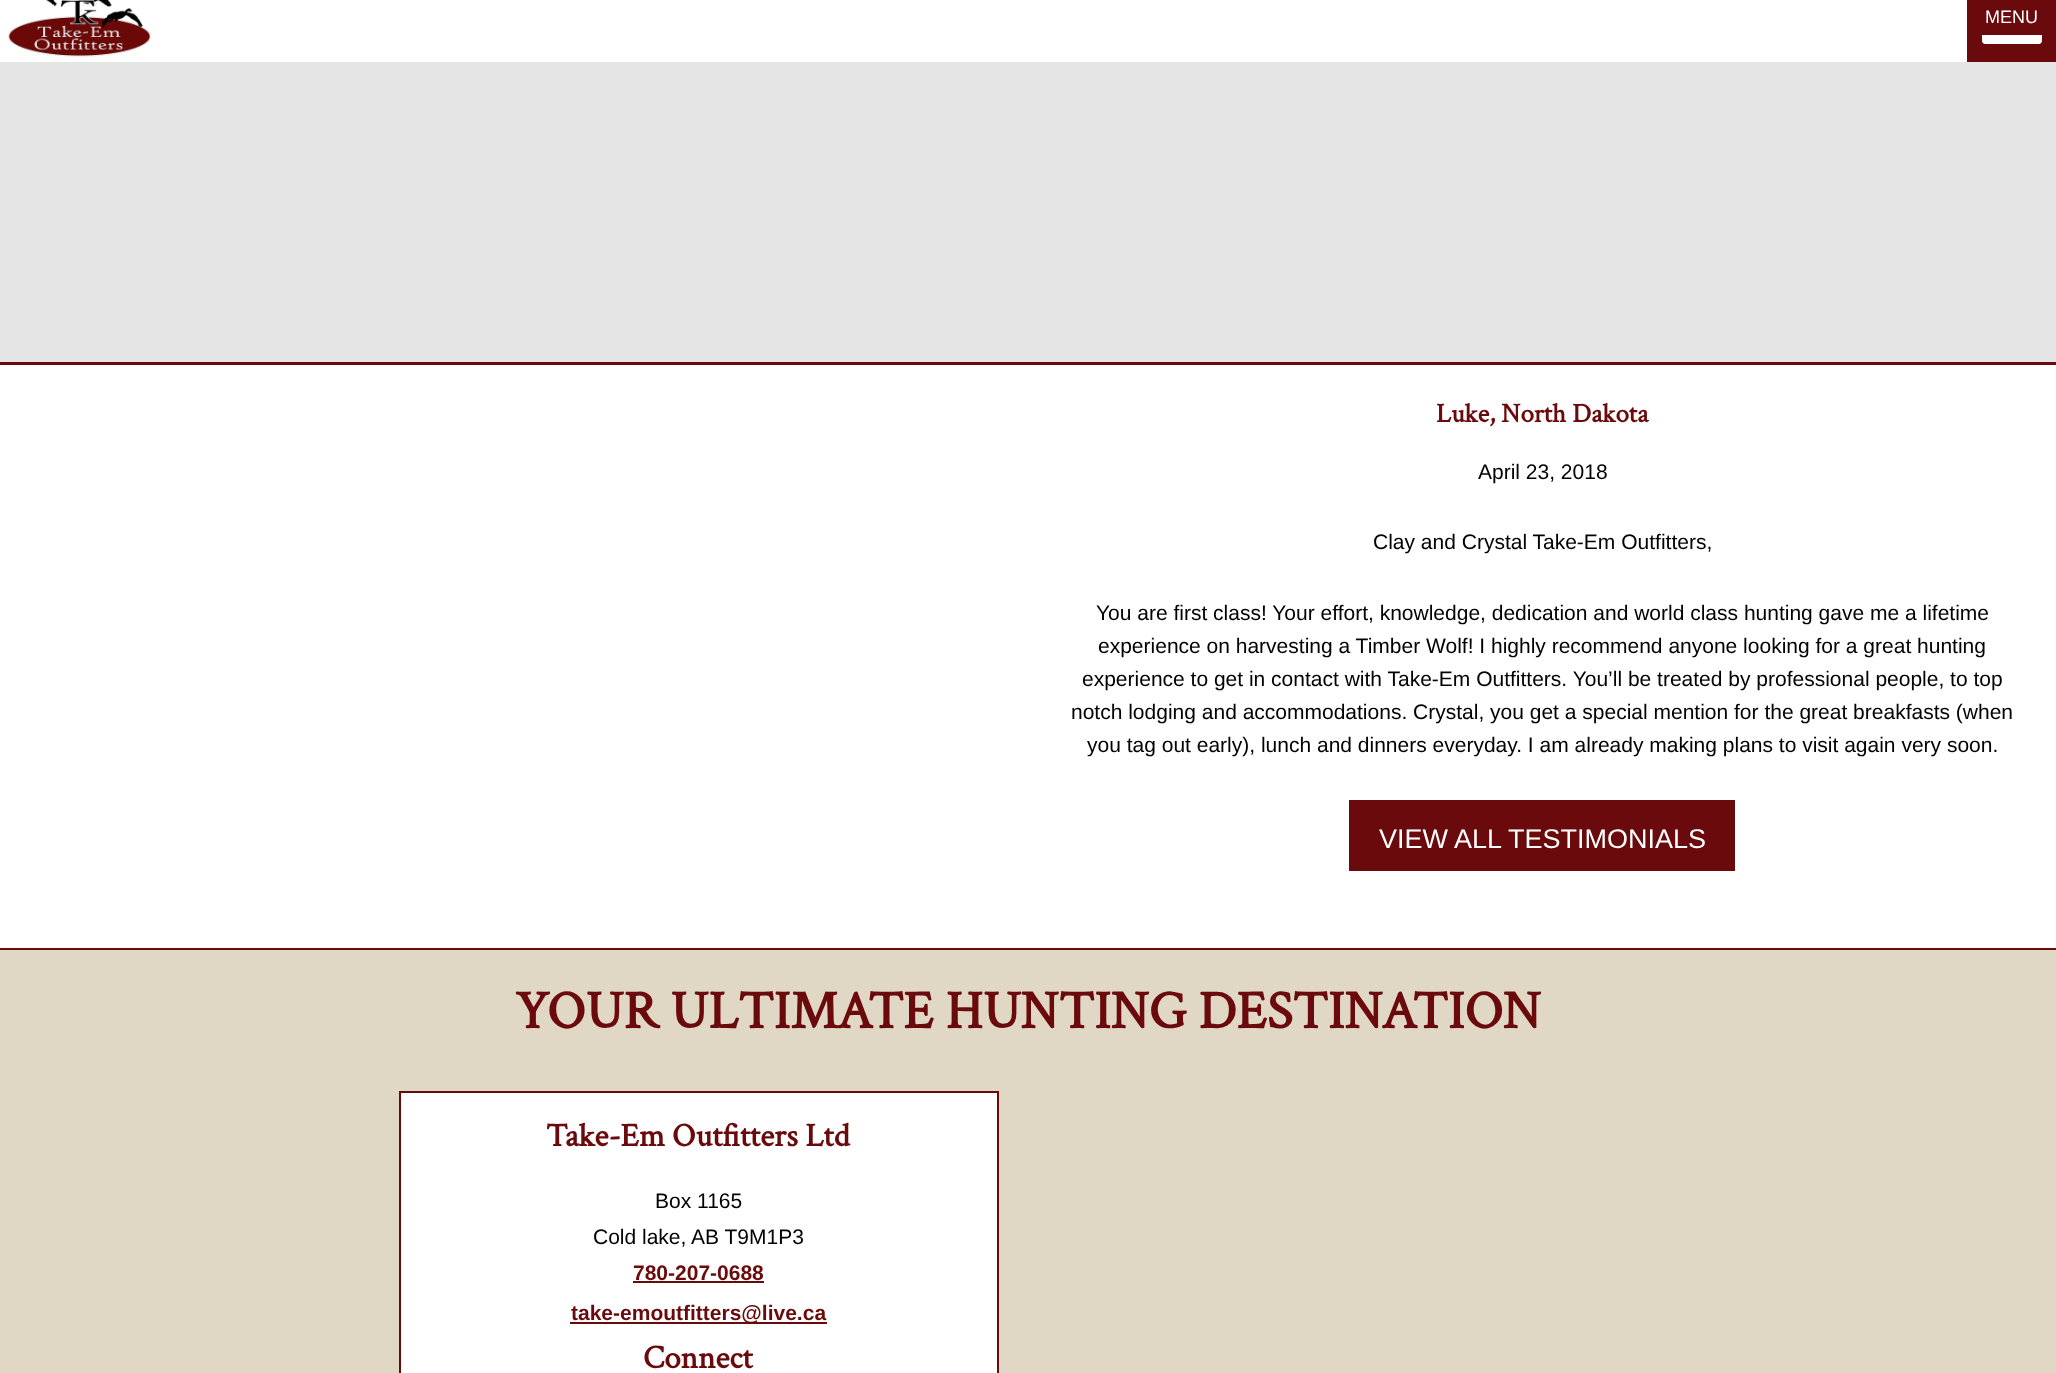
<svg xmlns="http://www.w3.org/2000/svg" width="2056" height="1373">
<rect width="100%" height="100%" fill="#fff"/>
<image x="8" y="0" width="143" height="57" href="media/1.png"/>
<rect x="1967" width="89" height="62" fill="#6a0a0c"/>
<text x="1985" y="23" style="font-family:Liberation Sans;font-size:18px;fill:#fff">MENU</text>
<path d="M1982 35h60v6c0 1.5-1.5 3-3 3h-54c-1.5 0-3-1.5-3-3z" fill="#fff"/>
<rect y="62" width="2056" height="300" fill="#e5e5e5"/>
<rect y="950" width="2056" height="423" fill="#e0d8c5"/>
<rect y="362" width="2056" height="3" fill="#6a0a0c"/>
<rect y="948" width="2056" height="2" fill="#6a0a0c"/>
<text x="1436" y="422" style="font-family:Crimson Text;font-size:27px;font-weight:bold;fill:#6a0a0c">Luke, North Dakota</text>
<text x="1478" y="479" style="font-family:Liberation Sans;font-size:21px;fill:#000">April 23, 2018</text>
<text x="1373" y="549" style="font-family:Liberation Sans;font-size:21px;fill:#000">Clay and Crystal Take-Em Outfitters,</text>
<text x="1096" y="620" style="font-family:Liberation Sans;font-size:21px;fill:#000">You are first class! Your effort, knowledge, dedication and world class hunting gave me a lifetime</text>
<text x="1098" y="653" style="font-family:Liberation Sans;font-size:21px;fill:#000">experience on harvesting a Timber Wolf! I highly recommend anyone looking for a great hunting</text>
<text x="1082" y="686" style="font-family:Liberation Sans;font-size:21px;fill:#000">experience to get in contact with Take-Em Outfitters. You’ll be treated by professional people, to top</text>
<text x="1071" y="719" style="font-family:Liberation Sans;font-size:21px;fill:#000">notch lodging and accommodations. Crystal, you get a special mention for the great breakfasts (when</text>
<text x="1087" y="752" style="font-family:Liberation Sans;font-size:21px;fill:#000">you tag out early), lunch and dinners everyday. I am already making plans to visit again very soon.</text>
<rect x="1349" y="800" width="386" height="71" fill="#6a0a0c"/>
<text x="1379" y="848" style="font-family:Liberation Sans;font-size:27px;fill:#fff">VIEW ALL TESTIMONIALS</text>
<text x="515" y="1028" style="font-family:Crimson Text;font-size:54px;font-weight:bold;fill:#6a0a0c">YOUR ULTIMATE HUNTING DESTINATION</text>
<rect x="400" y="1092" width="598" height="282" fill="#fff" stroke="#6a0a0c" stroke-width="2"/>
<text x="546" y="1146" style="font-family:Crimson Text;font-size:33px;font-weight:bold;fill:#6a0a0c">Take-Em Outfitters Ltd</text>
<text x="655" y="1208" style="font-family:Liberation Sans;font-size:21px;fill:#000">Box 1165</text>
<text x="593" y="1244" style="font-family:Liberation Sans;font-size:21px;fill:#000">Cold lake, AB T9M1P3</text>
<text x="633" y="1280" style="font-family:Liberation Sans;font-size:21px;font-weight:bold;fill:#6a0a0c">780-207-0688</text>
<rect x="633" y="1281" width="131" height="2" fill="#6a0a0c"/>
<rect x="570" y="1322" width="257" height="2" fill="#6a0a0c"/>
<text x="571" y="1320" style="font-family:Liberation Sans;font-size:21px;font-weight:bold;fill:#6a0a0c">take-emoutfitters@live.ca</text>
<text x="643" y="1368" style="font-family:Crimson Text;font-size:33px;font-weight:bold;fill:#6a0a0c">Connect</text>
</svg>
